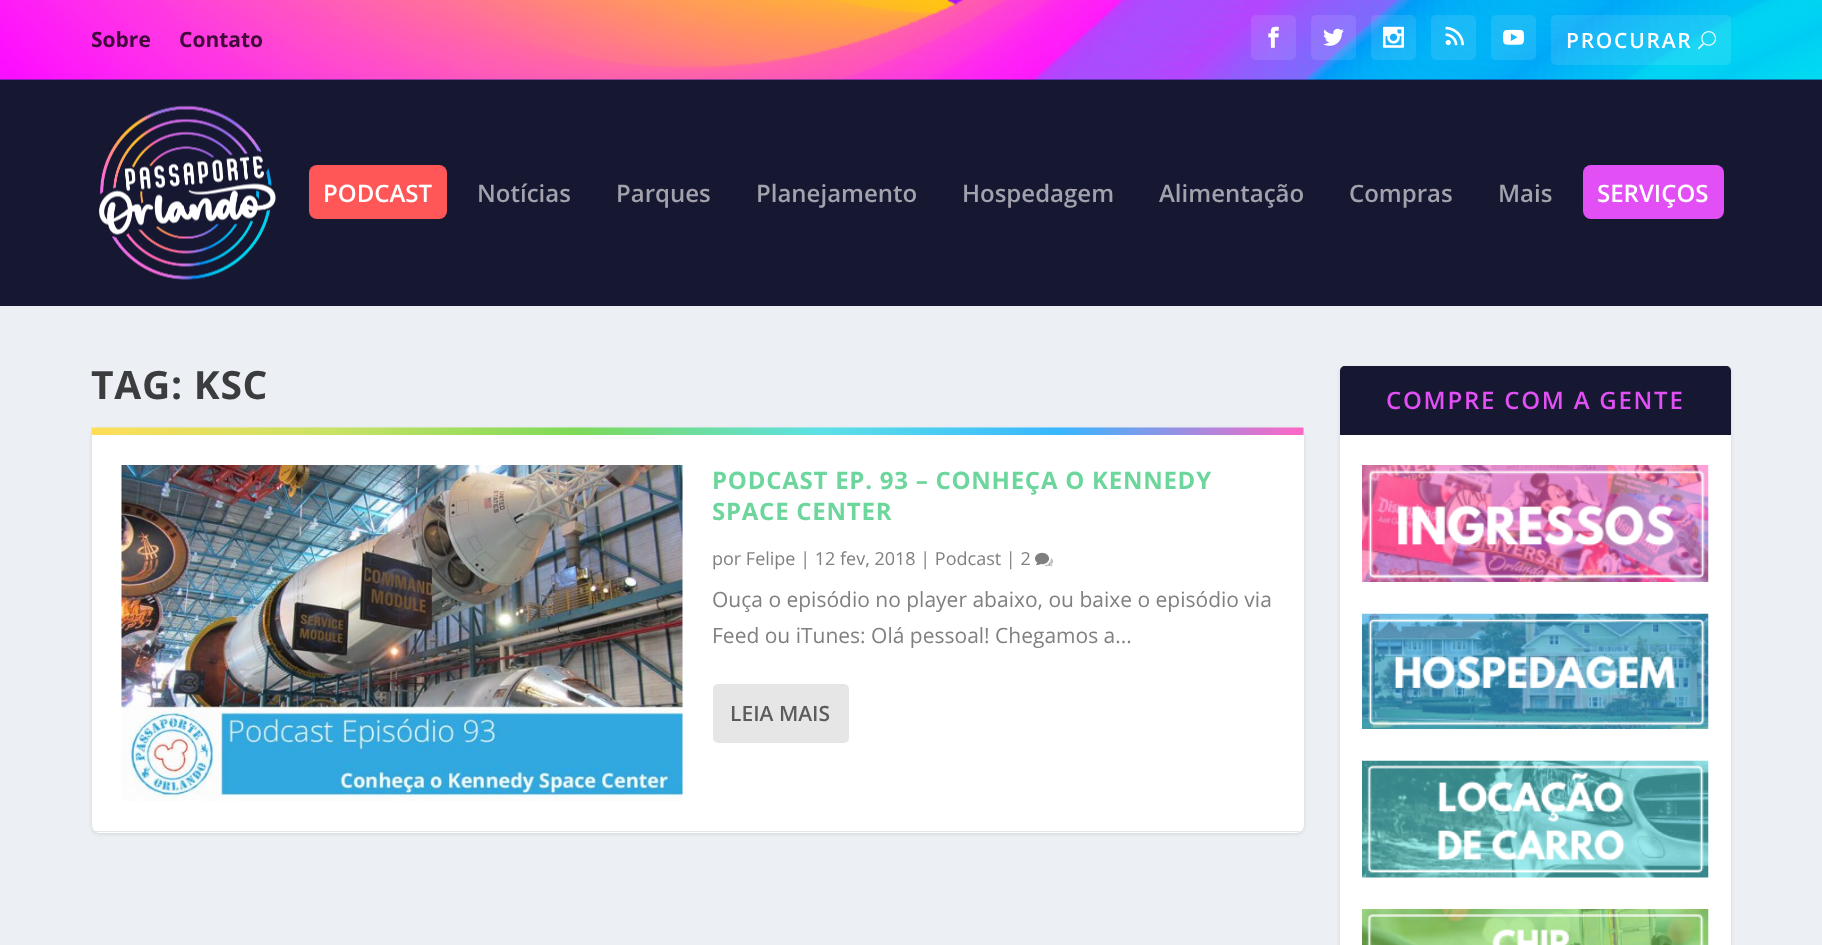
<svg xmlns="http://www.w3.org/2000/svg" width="1822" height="945">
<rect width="100%" height="100%" fill="#ecf0f5"/>
<rect y="79" width="1822" height="1" fill="#142576"/>
<image x="0" y="0" width="1822" height="80" href="media/1.png"/>
<text x="91" y="47" style="font-family:Open Sans;font-size:21px;font-weight:bold;fill:#400b3b">Sobre</text>
<text x="179" y="47" style="font-family:Open Sans;font-size:21px;font-weight:bold;fill:#400b3b">Contato</text>
<rect x="1251" y="15" width="45" height="45" rx="5" fill="#ffffff1a"/>
<image x="1268" y="26" width="11" height="22" href="media/2.png"/>
<rect x="1311" y="15" width="45" height="45" rx="5" fill="#ffffff1a"/>
<image x="1323" y="28" width="21" height="18" href="media/3.png"/>
<rect x="1371" y="15" width="45" height="45" rx="5" fill="#ffffff1a"/>
<image x="1383" y="26" width="21" height="22" href="media/4.png"/>
<rect x="1431" y="15" width="45" height="45" rx="5" fill="#ffffff1a"/>
<image x="1445" y="26" width="19" height="20" href="media/5.png"/>
<rect x="1491" y="15" width="45" height="45" rx="5" fill="#ffffff1a"/>
<image x="1503" y="29" width="21" height="16" href="media/6.png"/>
<rect x="1551" y="15" width="180" height="50" rx="5" fill="#ffffff1a"/>
<text x="1566" y="48" style="font-family:Open Sans;font-size:21px;font-weight:600;letter-spacing:1.75px;fill:#fff">PROCURAR</text>
<image x="1698" y="31" width="18" height="19" href="media/7.png"/>
<rect y="80" width="1822" height="226" fill="#161731"/>
<image x="99" y="105" width="177" height="179" href="media/8.png"/>
<rect x="309" y="165" width="138" height="54" rx="8" fill="#ff5757"/>
<text x="323" y="202" style="font-family:Open Sans;font-size:24px;font-weight:600;fill:#fff">PODCAST</text>
<text x="477" y="202" style="font-family:Open Sans;font-size:24px;font-weight:600;fill:#a2a2ad">Notícias</text>
<text x="616" y="202" style="font-family:Open Sans;font-size:24px;font-weight:600;fill:#a2a2ad">Parques</text>
<text x="756" y="202" style="font-family:Open Sans;font-size:24px;font-weight:600;fill:#a2a2ad">Planejamento</text>
<text x="962" y="202" style="font-family:Open Sans;font-size:24px;font-weight:600;fill:#a2a2ad">Hospedagem</text>
<text x="1159" y="202" style="font-family:Open Sans;font-size:24px;font-weight:600;fill:#a2a2ad">Alimentação</text>
<text x="1349" y="202" style="font-family:Open Sans;font-size:24px;font-weight:600;fill:#a2a2ad">Compras</text>
<text x="1498" y="202" style="font-family:Open Sans;font-size:24px;font-weight:600;fill:#a2a2ad">Mais</text>
<rect x="1583" y="165" width="141" height="54" rx="8" fill="#e24ff5"/>
<text x="1597" y="202" style="font-family:Open Sans;font-size:24px;font-weight:600;fill:#fff">SERVIÇOS</text>
<text x="91" y="399" style="font-family:Open Sans;font-size:39px;font-weight:bold;letter-spacing:0.75px;fill:#3b3c3d">TAG: KSC</text>
<rect x="92" y="429" width="1212" height="405" rx="8" fill="#0000001a" filter="blur(2px)"/>
<rect x="92" y="428" width="1212" height="405" rx="8" fill="#fff"/>
<image x="91" y="427" width="1213" height="8" href="media/9.png"/>
<path d="M1301 831c-2 1-3 1-5 1h-1197c-2 0-3 0-5-1z" fill="#0000001a"/>
<image x="121" y="465" width="562" height="336" href="media/10.png"/>
<text x="712" y="489" style="font-family:Open Sans;font-size:24px;font-weight:bold;letter-spacing:0.75px;fill:#6dd69c">PODCAST EP. 93 – CONHEÇA O KENNEDY</text>
<text x="712" y="520" style="font-family:Open Sans;font-size:24px;font-weight:bold;letter-spacing:0.75px;fill:#6dd69c">SPACE CENTER</text>
<text x="712" y="565" style="font-family:Open Sans;font-size:18px;fill:#808080">por Felipe | 12 fev, 2018 | Podcast | 2</text>
<image x="1035" y="552" width="18" height="15" href="media/11.png"/>
<text x="712" y="607" style="font-family:Open Sans;font-size:21px;fill:#808080">Ouça o episódio no player abaixo, ou baixe o episódio via</text>
<text x="712" y="643" style="font-family:Open Sans;font-size:21px;fill:#808080">Feed ou iTunes: Olá pessoal! Chegamos a...</text>
<rect x="713" y="684" width="136" height="59" rx="5" fill="#e6e6e6"/>
<text x="730" y="721" style="font-family:Open Sans;font-size:21px;font-weight:600;fill:#5c5c5c">LEIA MAIS</text>
<rect x="1340" y="368" width="391" height="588" rx="5" fill="#0000001a" filter="blur(2px)"/>
<rect x="1340" y="366" width="391" height="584" rx="5" fill="#fff"/>
<path d="M1345 366h381c3 0 5 2 5 5v64h-391v-64c0-3 2-5 5-5z" fill="#161731"/>
<text x="1386" y="409" style="font-family:Open Sans;font-size:24px;font-weight:600;letter-spacing:1.75px;fill:#e24ff5">COMPRE COM A GENTE</text>
<image x="1362" y="465" width="347" height="117" href="media/12.png"/>
<image x="1362" y="613" width="347" height="116" href="media/13.png"/>
<image x="1362" y="760" width="347" height="118" href="media/14.png"/>
<image x="1362" y="909" width="347" height="36" href="media/15.png"/>
</svg>
